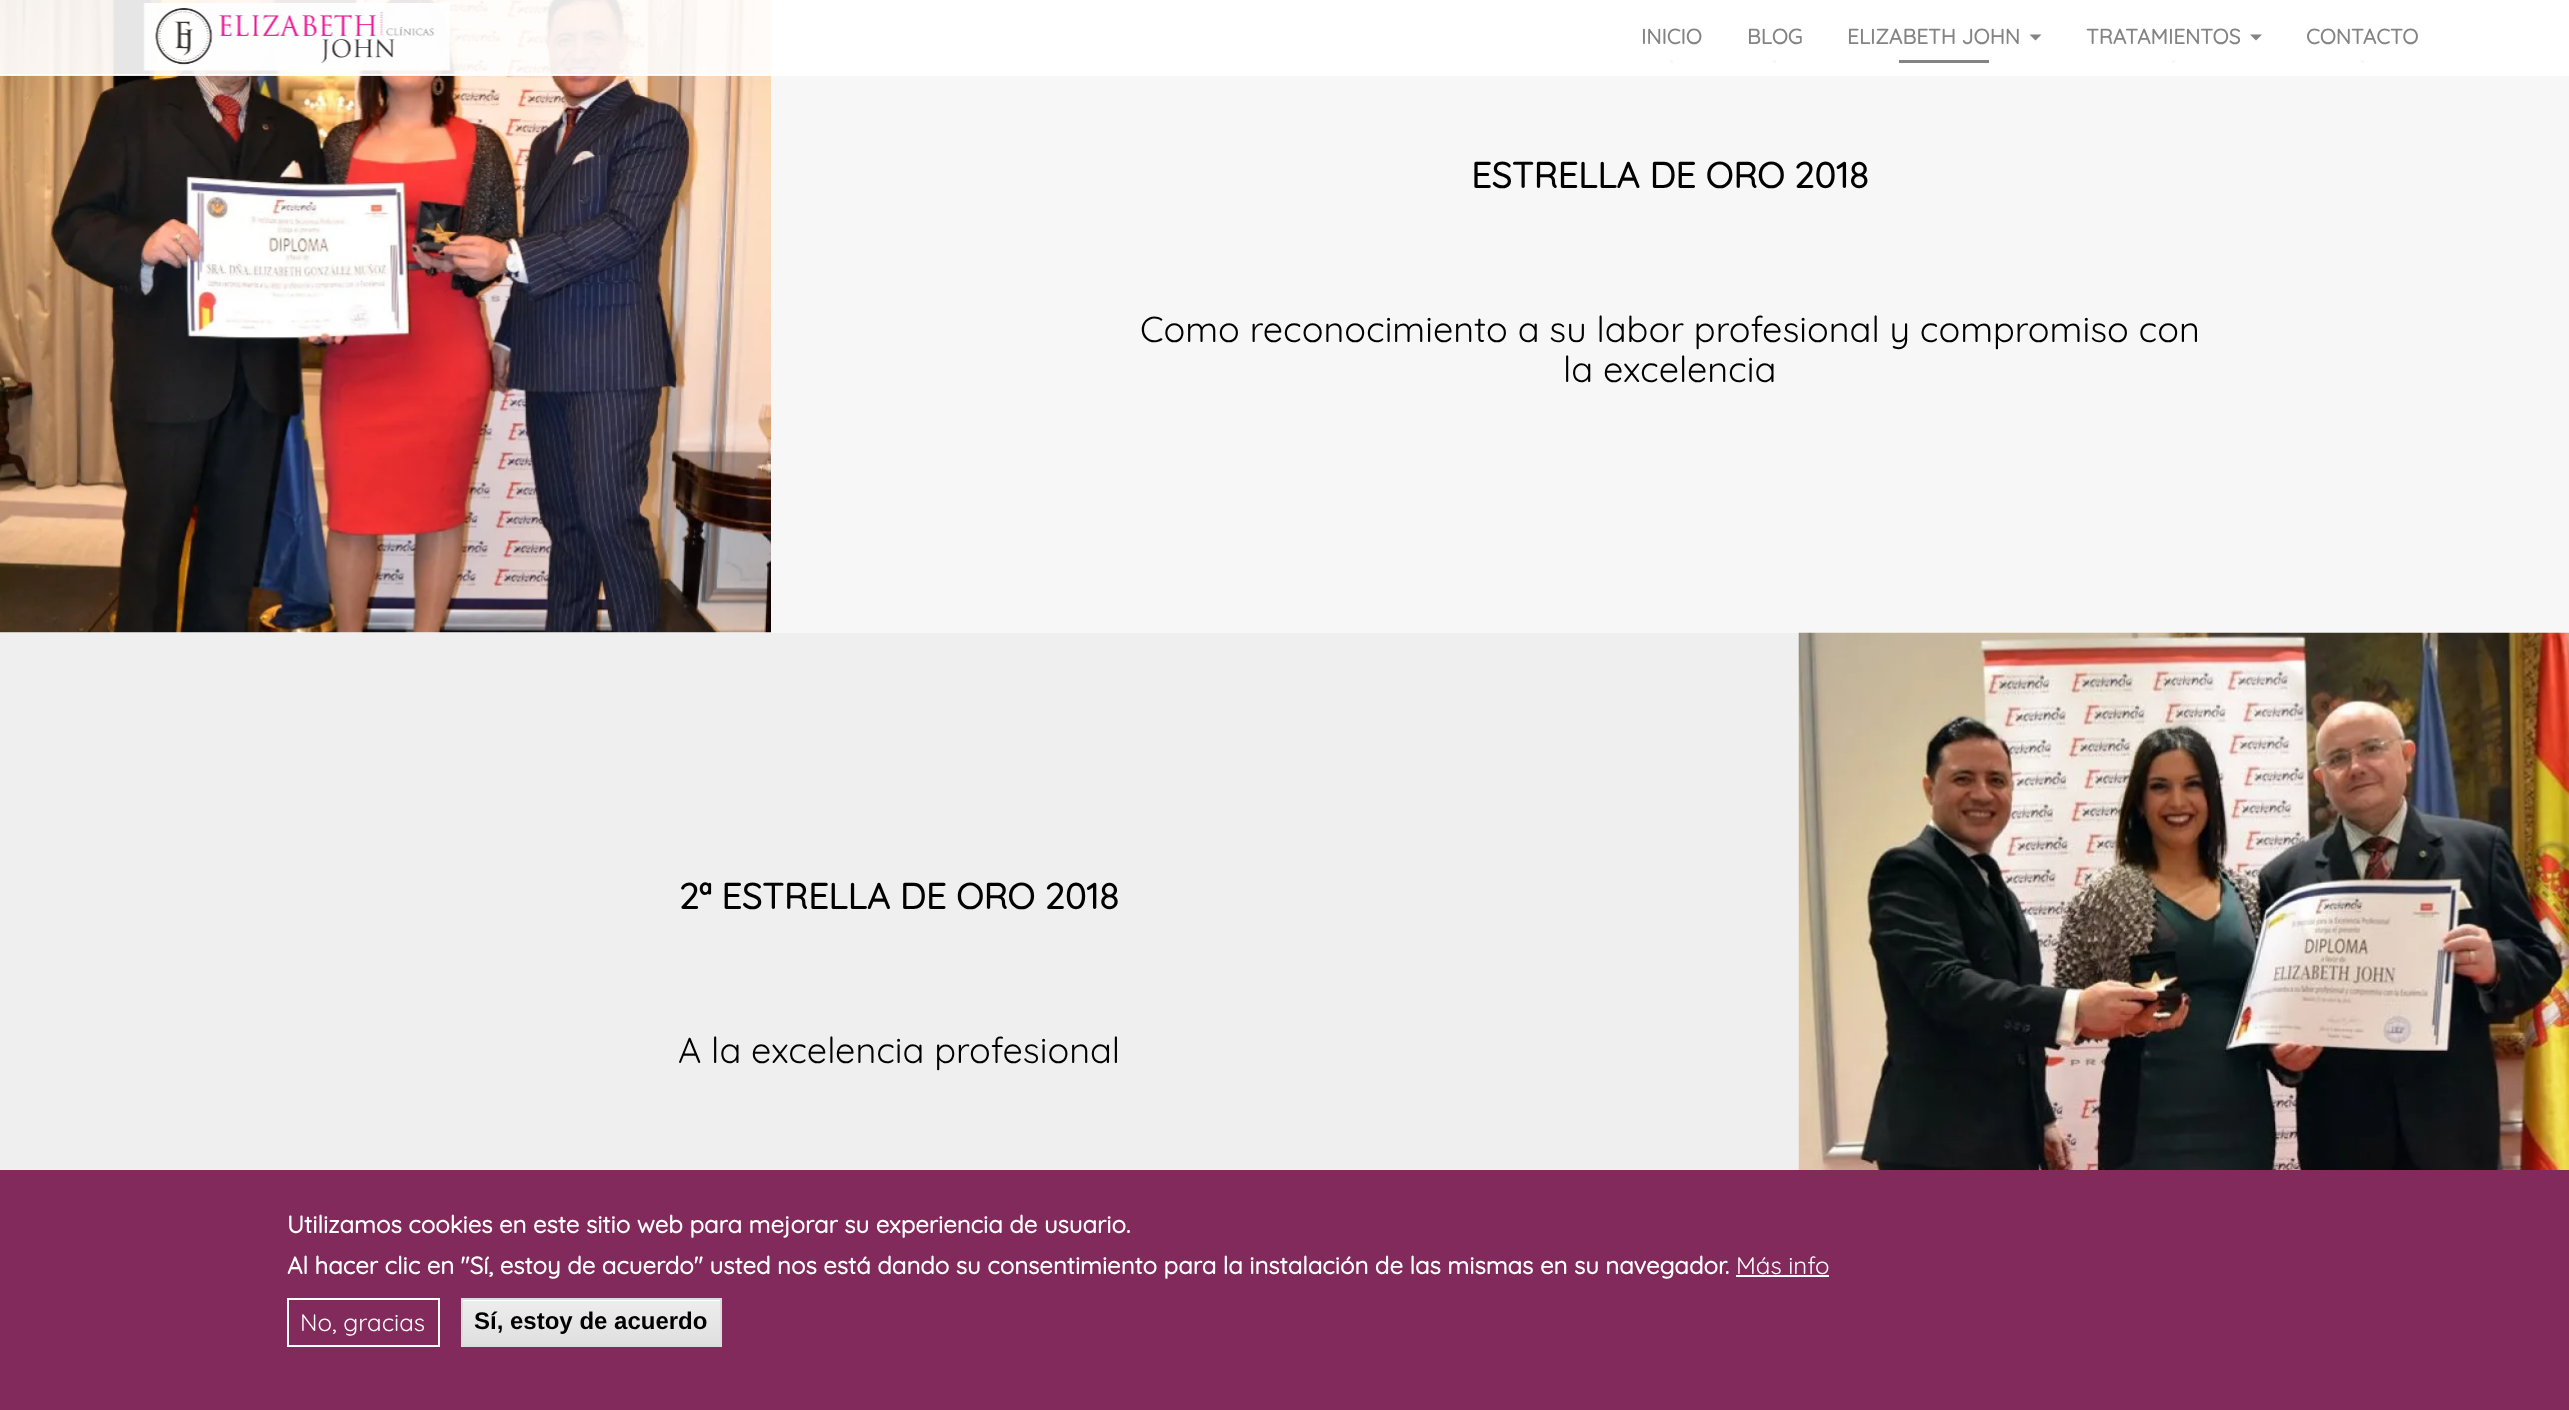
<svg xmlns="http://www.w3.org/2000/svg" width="2569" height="1410">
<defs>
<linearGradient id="g1" gradientUnits="userSpaceOnUse" x1="591" y1="1299" x2="591" y2="1346"><stop offset="0.05" stop-color="#ededed"/><stop offset="1" stop-color="#dfdfdf"/></linearGradient>
</defs>
<rect width="100%" height="100%" fill="#f7f7f7"/>
<image x="0" y="0" width="771" height="633" href="media/2.png"/>
<rect width="2569" height="75" fill="#ffffffe6"/>
<rect y="74" width="2569" height="2" fill="#ffffffe6"/>
<image x="143" y="3" width="308" height="68" href="media/1.png"/>
<text x="1641" y="44" style="font-family:Quicksand;font-size:21px;font-weight:bold;fill:#848484">INICIO</text>
<rect x="1670" y="60" width="3" height="3" fill="#f7f7f7"/>
<text x="1747" y="44" style="font-family:Quicksand;font-size:21px;font-weight:bold;fill:#848484">BLOG</text>
<rect x="1773" y="60" width="3" height="3" fill="#f7f7f7"/>
<text x="1847" y="44" style="font-family:Quicksand;font-size:21px;font-weight:bold;fill:#848484">ELIZABETH JOHN</text>
<path d="M2029.5 34.5h12l-6 6z" fill="#848484"/>
<rect x="1899" y="60" width="90" height="3" fill="#848484"/>
<text x="2086" y="44" style="font-family:Quicksand;font-size:21px;font-weight:bold;fill:#848484">TRATAMIENTOS</text>
<path d="M2250 34.5h12l-6 6z" fill="#848484"/>
<rect x="2172" y="60" width="3" height="3" fill="#f7f7f7"/>
<text x="2306" y="44" style="font-family:Quicksand;font-size:21px;font-weight:bold;fill:#848484">CONTACTO</text>
<rect x="2361" y="60" width="3" height="3" fill="#f7f7f7"/>
<text x="1471" y="188" style="font-family:Quicksand;font-size:36px;font-weight:bold;fill:#000">ESTRELLA DE ORO 2018</text>
<text x="1140" y="342" style="font-family:Quicksand;font-size:36px;font-weight:300;fill:#000">Como reconocimiento a su labor profesional y compromiso con</text>
<text x="1563" y="382" style="font-family:Quicksand;font-size:36px;font-weight:300;fill:#000">la excelencia</text>
<rect y="633" width="1799" height="537" fill="#efefef"/>
<text x="679" y="909" style="font-family:Quicksand;font-size:36px;font-weight:bold;fill:#000">2ª ESTRELLA DE ORO 2018</text>
<text x="678" y="1063" style="font-family:Quicksand;font-size:36px;font-weight:300;fill:#000">A la excelencia profesional</text>
<image x="1798" y="632" width="771" height="538" href="media/3.png"/>
<rect y="1170" width="2569" height="240" fill="#822a5b"/>
<text x="287" y="1233" style="font-family:Quicksand;font-size:24px;font-weight:bold;fill:#fff">Utilizamos cookies en este sitio web para mejorar su experiencia de usuario.</text>
<text x="287" y="1274" style="font-family:Quicksand;font-size:24px;font-weight:bold;fill:#fff">Al hacer clic en "Sí, estoy de acuerdo" usted nos está dando su consentimiento para la instalación de las mismas en su navegador.</text>
<text x="1736" y="1274" style="font-family:Quicksand;font-size:24px;font-weight:300;fill:#fff">Más info</text>
<rect x="1736" y="1275" width="93" height="2" fill="#fff"/>
<rect x="288" y="1299" width="151" height="47" fill="none" stroke="#fff" stroke-width="2"/>
<text x="300" y="1331" style="font-family:Quicksand;font-size:24px;font-weight:300;fill:#fff">No, gracias</text>
<rect x="463" y="1301" width="257" height="44" fill="url(#g1)"/>
<rect x="462" y="1300" width="258" height="1" fill="#fff"/>
<rect x="462" y="1299" width="259" height="47" fill="none" stroke="#dcdcdc" stroke-width="2"/>
<text x="474" y="1329" style="font-family:Liberation Sans;font-size:24px;font-weight:bold;fill:#000">Sí, estoy de acuerdo</text>
</svg>
